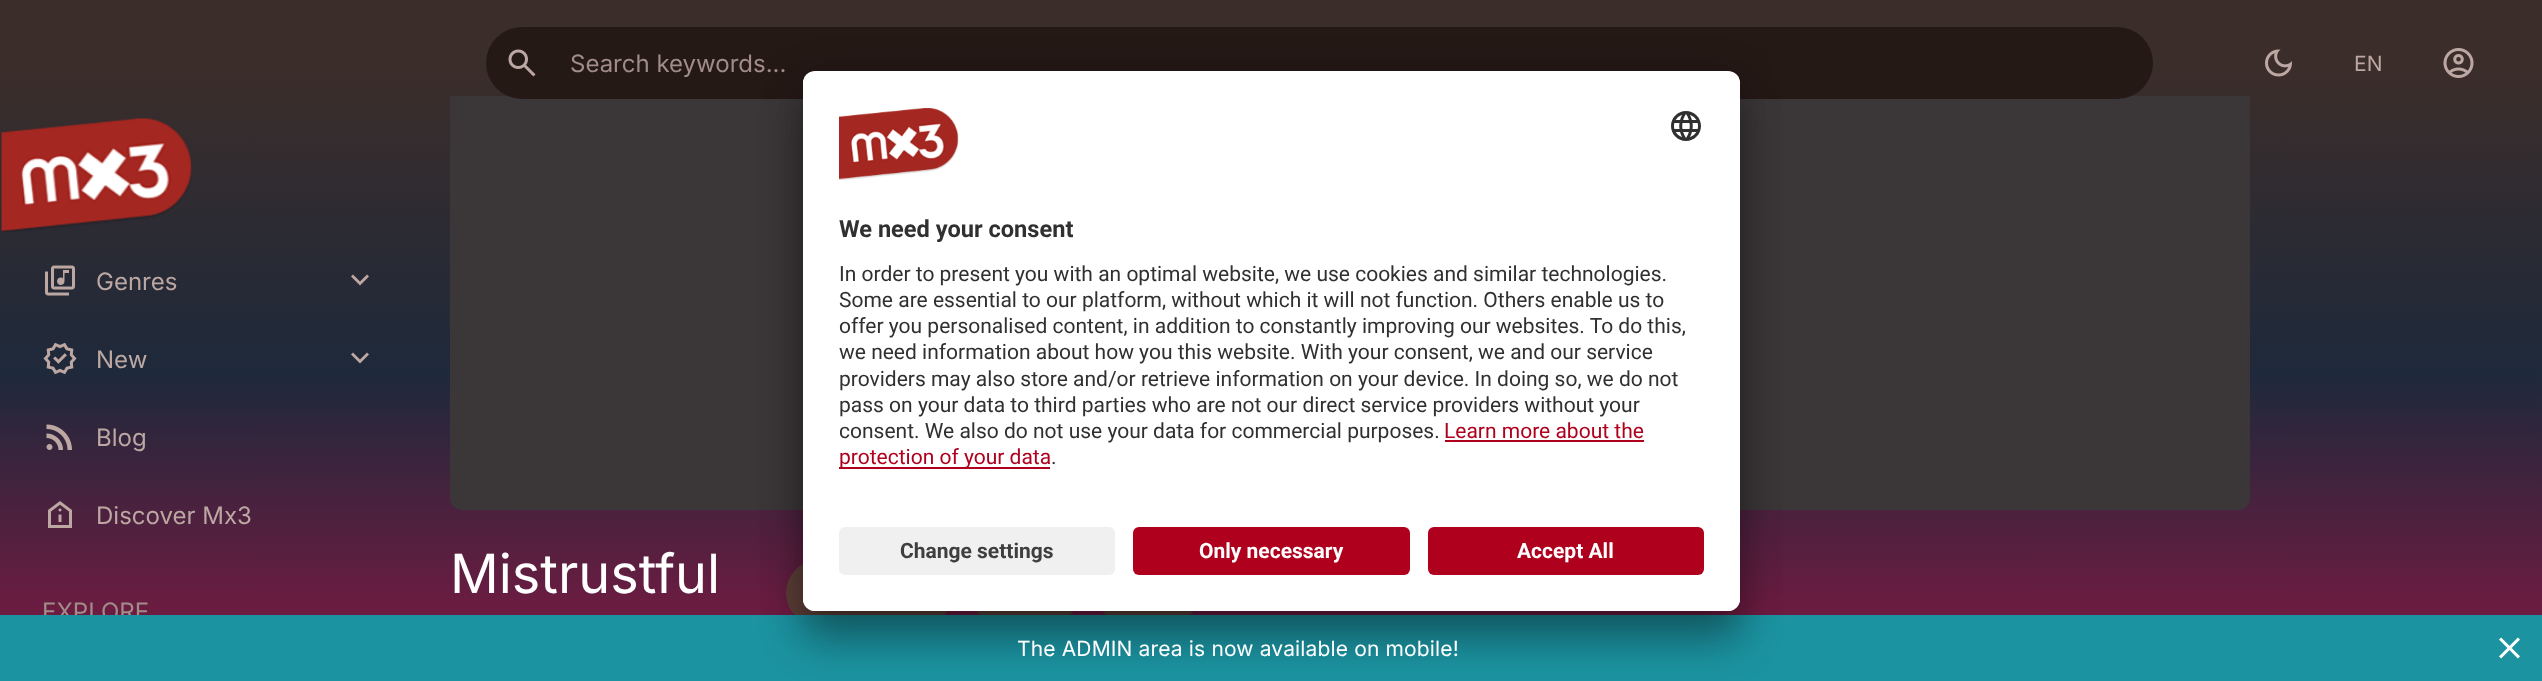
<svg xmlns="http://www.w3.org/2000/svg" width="2542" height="681">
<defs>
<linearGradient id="g1" gradientUnits="userSpaceOnUse" x1="1271" y1="0" x2="1271" y2="681"><stop offset="0.1" stop-color="#3b2d2a"/><stop offset="0.55" stop-color="#1e293b"/><stop offset="1" stop-color="#831843"/></linearGradient>
<clipPath id="clip1"><rect x="803" y="71" width="937" height="540" rx="12"/></clipPath>
<clipPath id="clip2"><path d="M815 71h913c6.5 0 12 5.5 12 12v432h-937v-432c0-6.5 5.5-12 12-12z"/></clipPath>
</defs>
<rect width="100%" height="100%" fill="#fff"/>
<rect width="2542" height="615" fill="url(#g1)"/>
<rect x="450" y="-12" width="1800" height="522" rx="12" fill="#3b3739"/>
<rect x="450" width="1800" height="96" fill="url(#g1)"/>
<rect x="486" y="27" width="1667" height="72" rx="36" fill="#251916"/>
<image x="508" y="49" width="28" height="28" href="media/1.png"/>
<text x="570" y="72" style="font-family:Inter;font-size:24px;fill:#a08c88">Search keywords...</text>
<image x="2265" y="49" width="27" height="28" href="media/2.png"/>
<text x="2354" y="71" style="font-family:Inter;font-size:21px;letter-spacing:0.15px;fill:#bca7a2">EN</text>
<image x="2443" y="48" width="31" height="30" href="media/3.png"/>
<image x="1" y="118" width="191" height="114" href="media/4.png"/>
<image x="45" y="265" width="30" height="31" href="media/5.png"/>
<text x="96" y="290" style="font-family:Inter;font-size:24px;fill:#bca7a2">Genres</text>
<path d="M360 285.5l-9-9l2-2l7 7l7-7l2 2z" fill="#bca7a2"/>
<image x="43" y="342" width="34" height="33" href="media/6.png"/>
<text x="96" y="368" style="font-family:Inter;font-size:24px;fill:#bca7a2">New</text>
<path d="M360 363.5l-9-9l2-2l7 7l7-7l2 2z" fill="#bca7a2"/>
<image x="46" y="424" width="26" height="26" href="media/7.png"/>
<text x="96" y="446" style="font-family:Inter;font-size:24px;fill:#bca7a2">Blog</text>
<image x="48" y="501" width="24" height="27" href="media/8.png"/>
<text x="96" y="524" style="font-family:Inter;font-size:24px;fill:#bca7a2">Discover Mx3</text>
<text x="42" y="620" style="font-family:Inter;font-size:24px;fill:#a08c88">EXPLORE</text>
<text x="450" y="593" style="font-family:Inter;font-size:54px;fill:#fff">Mistrustful</text>
<rect x="786" y="560" width="167" height="66" rx="33" fill="#5d3f38"/>
<rect x="971" y="560" width="108" height="66" rx="33" fill="#5d3f38"/>
<rect x="1097" y="560" width="102" height="66" rx="33" fill="#5d3f38"/>
<rect y="615" width="2542" height="66" fill="#1c93a1"/>
<rect x="803" y="101" width="937" height="540" rx="12" fill="#0000004d" filter="blur(21px)"/>
<rect x="803" y="78" width="937" height="540" rx="12" fill="#00000038" filter="blur(19.5px)"/>
<rect x="803" y="71" width="937" height="540" rx="12" fill="#fff"/>
<g clip-path="url(#clip1)">
<g clip-path="url(#clip2)">
<rect x="803" y="72" width="937" height="443" fill="#fff"/>
</g>
</g>
<image x="839" y="108" width="120" height="72" href="media/9.png"/>
<image x="1671" y="111" width="30" height="30" href="media/10.png"/>
<text x="839" y="237" style="font-family:Roboto;font-size:23.6px;font-weight:bold;fill:#303030">We need your consent</text>
<text x="839" y="281" style="font-family:Roboto;font-size:21px;fill:#303030">In order to present you with an optimal website, we use cookies and similar technologies.</text>
<text x="839" y="307" style="font-family:Roboto;font-size:21px;fill:#303030">Some are essential to our platform, without which it will not function. Others enable us to</text>
<text x="839" y="333" style="font-family:Roboto;font-size:21px;fill:#303030">offer you personalised content, in addition to constantly improving our websites. To do this,</text>
<text x="839" y="359" style="font-family:Roboto;font-size:21px;fill:#303030">we need information about how you this website. With your consent, we and our service</text>
<text x="839" y="386" style="font-family:Roboto;font-size:21px;fill:#303030">providers may also store and/or retrieve information on your device. In doing so, we do not</text>
<text x="839" y="412" style="font-family:Roboto;font-size:21px;fill:#303030">pass on your data to third parties who are not our direct service providers without your</text>
<text x="839" y="438" style="font-family:Roboto;font-size:21px;fill:#303030">consent. We also do not use your data for commercial purposes.</text>
<text x="1444" y="438" style="font-family:Roboto;font-size:21px;fill:#af001e">Learn more about the</text>
<rect x="1445" y="440" width="199" height="2" fill="#af001e"/>
<rect x="839" y="467" width="211" height="2" fill="#af001e"/>
<text x="839" y="464" style="font-family:Roboto;font-size:21px;fill:#af001e">protection of your data</text>
<text x="1051" y="464" style="font-family:Roboto;font-size:21px;fill:#303030">.</text>
<path d="M803 515h937v84c0 6.5-5.5 12-12 12h-913c-6.5 0-12-5.5-12-12z" fill="#fff"/>
<rect x="839" y="527" width="276" height="48" rx="6" fill="#f0f0f0"/>
<text x="900" y="558" style="font-family:Roboto;font-size:21px;font-weight:bold;fill:#3f3f3f">Change settings</text>
<rect x="1133" y="527" width="277" height="48" rx="6" fill="#af001e"/>
<text x="1199" y="558" style="font-family:Roboto;font-size:21px;font-weight:bold;fill:#fff">Only necessary</text>
<rect x="1428" y="527" width="276" height="48" rx="6" fill="#af001e"/>
<text x="1517" y="558" style="font-family:Roboto;font-size:21px;font-weight:bold;fill:#fff">Accept All</text>
<text x="1017" y="656" style="font-family:Inter;font-size:21px;letter-spacing:0.15px;fill:#fff">The ADMIN area is now available on mobile!</text>
<image x="2499" y="637" width="21" height="22" href="media/11.png"/>
</svg>
